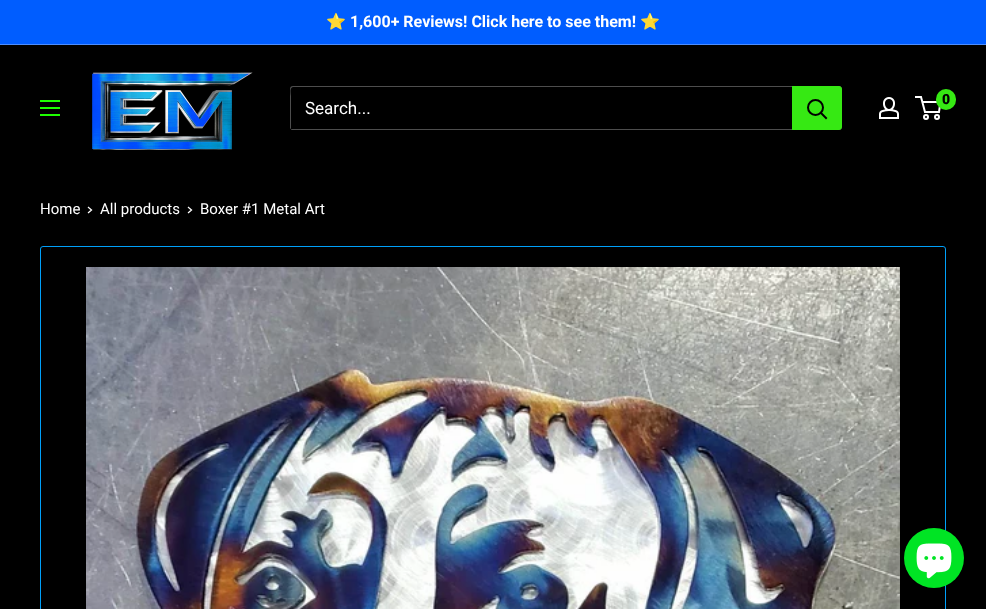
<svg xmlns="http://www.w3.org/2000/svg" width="986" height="609">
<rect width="100%" height="100%" fill="#000"/>
<rect width="986" height="44" fill="#005dff"/>
<rect y="44" width="986" height="1" fill="#4d8eff"/>
<text x="326" y="27" style="font-family:Noto Color Emoji;font-size:16px;font-weight:bold;fill:#fff">⭐️</text>
<text x="350" y="27" style="font-family:Roboto;font-size:16px;font-weight:bold;fill:#fff">1,600+ Reviews! Click here to see them!</text>
<text x="640" y="27" style="font-family:Noto Color Emoji;font-size:16px;font-weight:bold;fill:#fff">⭐️</text>
<image x="40" y="100" width="20" height="16" href="media/1.png"/>
<image x="92" y="72" width="161" height="78" href="media/2.png"/>
<path d="M291 129c0 1 1 1 2 1h546c2 0 3-1 3-3v-38c0-1 0-2-1-2v33c0 2 2 9-3 9z" fill="#4d4d4d"/>
<path d="M294 87h547c0-1-1-1-2-1h-546c-2 0-3 1-3 3v38c0 1 0 2 1 2v-33c0-2-2-9 3-9z" fill="#4d4d4d"/>
<text x="305" y="114" style="font-family:Roboto;font-size:17px;fill:#fff">Search...</text>
<path d="M792 86h47c1.5 0 3 1.5 3 3v38c0 1.5-1.5 3-3 3h-47z" fill="#36e913"/>
<path d="M826 118l-5-5" fill="none" stroke="#000" stroke-width="2" stroke-linecap="square"/>
<circle cx="815.5" cy="107.5" r="7.5" fill="none" stroke="#000" stroke-width="2"/>
<image x="879" y="97" width="20" height="22" href="media/3.png"/>
<circle cx="926" cy="117" r="2" fill="none" stroke="#fff" stroke-width="2"/>
<circle cx="937" cy="117" r="2" fill="none" stroke="#fff" stroke-width="2"/>
<path d="M922.5 102h18l-1.5 10h-14l-4-15h-6" fill="none" stroke="#fff" stroke-width="2"/>
<rect x="936" y="89" width="20" height="21" rx="10" fill="#36e913"/>
<text x="942" y="104" style="font-family:Roboto;font-size:14px;font-weight:900;fill:#000">0</text>
<text x="40" y="214" style="font-family:Roboto;font-size:15px;fill:#fff">Home</text>
<path d="M88.5 207.5l3 2.5l-3 2.5" fill="none" stroke="#fff" stroke-width="1.3" stroke-linecap="square"/>
<text x="100" y="214" style="font-family:Roboto;font-size:15px;fill:#fff">All products</text>
<path d="M188.5 207.5l3 2.5l-3 2.5" fill="none" stroke="#fff" stroke-width="1.3" stroke-linecap="square"/>
<text x="200" y="214" style="font-family:Roboto;font-size:15px;fill:#fff">Boxer #1 Metal Art</text>
<rect x="40.5" y="246.5" width="905" height="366" rx="2.5" fill="none" stroke="#009ff9"/>
<image x="86" y="267" width="814" height="342" href="media/4.png"/>
<circle cx="934" cy="558" r="30" fill="#00e424"/>
<image x="916" y="543" width="36" height="36" href="media/5.png"/>
</svg>
